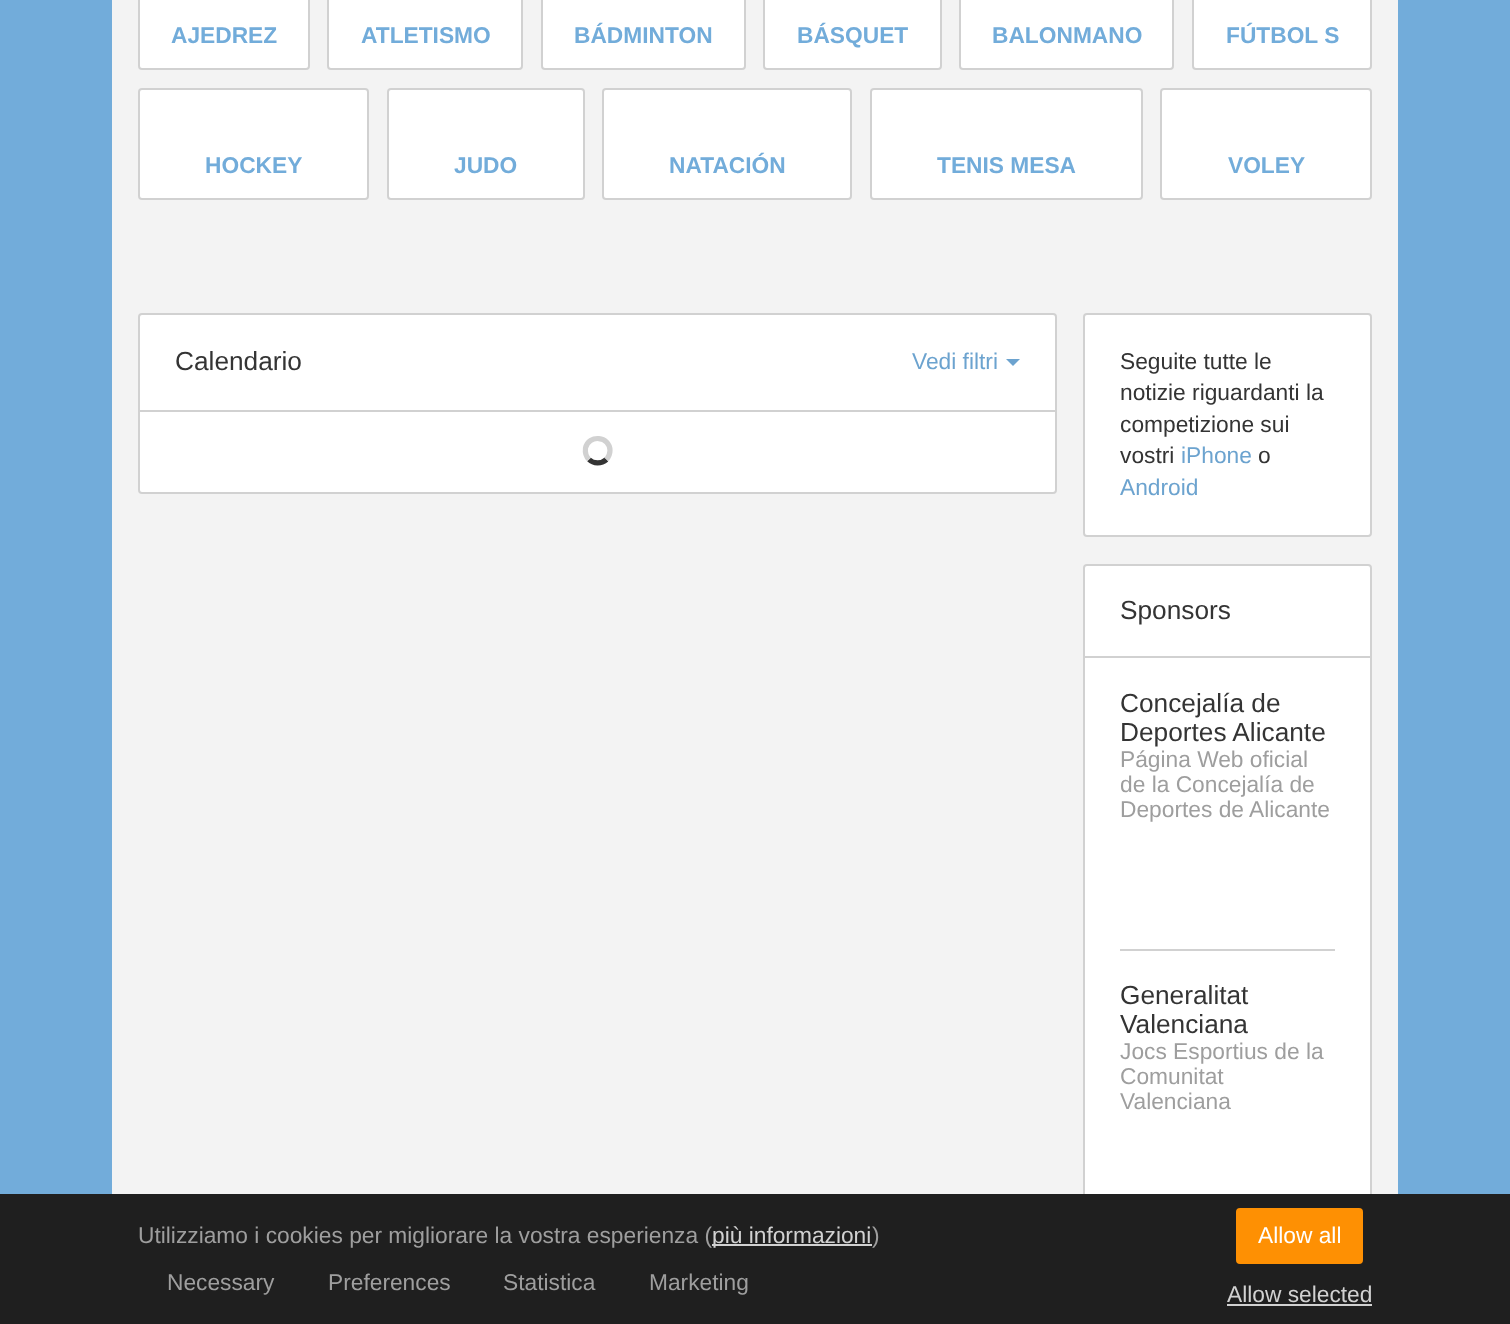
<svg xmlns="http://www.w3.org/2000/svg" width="1510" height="1324">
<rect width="100%" height="100%" fill="#72acda"/>
<rect x="112" width="1286" height="1194" fill="#f3f3f3"/>
<rect x="139" y="-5" width="170" height="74" rx="3" fill="#fff" stroke="#d1d1d1" stroke-width="2"/>
<text x="171" y="43" style="font-family:Liberation Sans;font-size:22.75px;font-weight:bold;fill:#72acda">AJEDREZ</text>
<rect x="328" y="-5" width="194" height="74" rx="3" fill="#fff" stroke="#d1d1d1" stroke-width="2"/>
<text x="361" y="43" style="font-family:Liberation Sans;font-size:22.75px;font-weight:bold;fill:#72acda">ATLETISMO</text>
<rect x="542" y="-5" width="203" height="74" rx="3" fill="#fff" stroke="#d1d1d1" stroke-width="2"/>
<text x="574" y="43" style="font-family:Liberation Sans;font-size:22.75px;font-weight:bold;fill:#72acda">BÁDMINTON</text>
<rect x="764" y="-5" width="177" height="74" rx="3" fill="#fff" stroke="#d1d1d1" stroke-width="2"/>
<text x="797" y="43" style="font-family:Liberation Sans;font-size:22.75px;font-weight:bold;fill:#72acda">BÁSQUET</text>
<rect x="960" y="-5" width="213" height="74" rx="3" fill="#fff" stroke="#d1d1d1" stroke-width="2"/>
<text x="992" y="43" style="font-family:Liberation Sans;font-size:22.75px;font-weight:bold;fill:#72acda">BALONMANO</text>
<rect x="1193" y="-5" width="178" height="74" rx="3" fill="#fff" stroke="#d1d1d1" stroke-width="2"/>
<text x="1226" y="43" style="font-family:Liberation Sans;font-size:22.75px;font-weight:bold;fill:#72acda">FÚTBOL S</text>
<rect x="139" y="89" width="229" height="110" rx="3" fill="#fff" stroke="#d1d1d1" stroke-width="2"/>
<text x="205" y="173" style="font-family:Liberation Sans;font-size:22.75px;font-weight:bold;fill:#72acda">HOCKEY</text>
<rect x="388" y="89" width="196" height="110" rx="3" fill="#fff" stroke="#d1d1d1" stroke-width="2"/>
<text x="454" y="173" style="font-family:Liberation Sans;font-size:22.75px;font-weight:bold;fill:#72acda">JUDO</text>
<rect x="603" y="89" width="248" height="110" rx="3" fill="#fff" stroke="#d1d1d1" stroke-width="2"/>
<text x="669" y="173" style="font-family:Liberation Sans;font-size:22.75px;font-weight:bold;fill:#72acda">NATACIÓN</text>
<rect x="871" y="89" width="271" height="110" rx="3" fill="#fff" stroke="#d1d1d1" stroke-width="2"/>
<text x="937" y="173" style="font-family:Liberation Sans;font-size:22.75px;font-weight:bold;fill:#72acda">TENIS MESA</text>
<rect x="1161" y="89" width="210" height="110" rx="3" fill="#fff" stroke="#d1d1d1" stroke-width="2"/>
<text x="1228" y="173" style="font-family:Liberation Sans;font-size:22.75px;font-weight:bold;fill:#72acda">VOLEY</text>
<rect x="139" y="314" width="917" height="179" rx="3" fill="#fff" stroke="#d1d1d1" stroke-width="2"/>
<text x="175" y="370" style="font-family:Liberation Sans;font-size:26.25px;fill:#343434">Calendario</text>
<text x="912" y="369" style="font-family:Liberation Sans;font-size:22.75px;fill:#6ca3cf">Vedi filtri</text>
<path d="M1006 359h14l-7 7z" fill="#6ca3cf"/>
<rect x="140" y="410" width="915" height="2" fill="#d1d1d1"/>
<path d="M606.5 459.5c-5 4.5-13 4.5-17.5 0" fill="none" stroke="#343434" stroke-width="5.2"/>
<path d="M589 459.5c-3-3-4-7.5-3.5-11.5c3-14 24.5-12 24.5 2.5c0 3.5-1.5 6.5-3.5 9" fill="none" stroke="#d1d1d1" stroke-width="5.2"/>
<rect x="1084" y="314" width="287" height="222" rx="3" fill="#fff" stroke="#d1d1d1" stroke-width="2"/>
<text x="1120" y="369" style="font-family:Liberation Sans;font-size:22.75px;fill:#343434">Seguite tutte le</text>
<text x="1120" y="400" style="font-family:Liberation Sans;font-size:22.75px;fill:#343434">notizie riguardanti la</text>
<text x="1120" y="432" style="font-family:Liberation Sans;font-size:22.75px;fill:#343434">competizione sui</text>
<text x="1120" y="463" style="font-family:Liberation Sans;font-size:22.75px;fill:#343434">vostri</text>
<text x="1181" y="463" style="font-family:Liberation Sans;font-size:22.75px;fill:#6ca3cf">iPhone</text>
<text x="1258" y="463" style="font-family:Liberation Sans;font-size:22.75px;fill:#343434">o</text>
<text x="1120" y="495" style="font-family:Liberation Sans;font-size:22.75px;fill:#6ca3cf">Android</text>
<rect x="1084" y="565" width="287" height="677" rx="3" fill="#fff" stroke="#d1d1d1" stroke-width="2"/>
<rect x="1085" y="656" width="285" height="2" fill="#d1d1d1"/>
<text x="1120" y="619" style="font-family:Liberation Sans;font-size:26.25px;fill:#343434">Sponsors</text>
<rect x="1120" y="949" width="215" height="2" fill="#d1d1d1"/>
<text x="1120" y="712" style="font-family:Liberation Sans;font-size:26.25px;fill:#343434">Concejalía de</text>
<text x="1120" y="741" style="font-family:Liberation Sans;font-size:26.25px;fill:#343434">Deportes Alicante</text>
<text x="1120" y="767" style="font-family:Liberation Sans;font-size:22.75px;fill:#9e9e9e">Página Web oficial</text>
<text x="1120" y="792" style="font-family:Liberation Sans;font-size:22.75px;fill:#9e9e9e">de la Concejalía de</text>
<text x="1120" y="817" style="font-family:Liberation Sans;font-size:22.75px;fill:#9e9e9e">Deportes de Alicante</text>
<text x="1120" y="1004" style="font-family:Liberation Sans;font-size:26.25px;fill:#343434">Generalitat</text>
<text x="1120" y="1033" style="font-family:Liberation Sans;font-size:26.25px;fill:#343434">Valenciana</text>
<text x="1120" y="1059" style="font-family:Liberation Sans;font-size:22.75px;fill:#9e9e9e">Jocs Esportius de la</text>
<text x="1120" y="1084" style="font-family:Liberation Sans;font-size:22.75px;fill:#9e9e9e">Comunitat</text>
<text x="1120" y="1109" style="font-family:Liberation Sans;font-size:22.75px;fill:#9e9e9e">Valenciana</text>
<rect y="1194" width="1510" height="130" fill="#1f1f1f"/>
<text x="138" y="1243" style="font-family:Liberation Sans;font-size:22.75px;fill:#9e9e9e">Utilizziamo i cookies per migliorare la vostra esperienza (</text>
<rect x="712" y="1244" width="160" height="2" fill="#d1d1d1"/>
<text x="712" y="1243" style="font-family:Liberation Sans;font-size:22.75px;fill:#d1d1d1">più informazioni</text>
<text x="872" y="1243" style="font-family:Liberation Sans;font-size:22.75px;fill:#9e9e9e">)</text>
<text x="167" y="1290" style="font-family:Liberation Sans;font-size:22.75px;fill:#9e9e9e">Necessary</text>
<text x="328" y="1290" style="font-family:Liberation Sans;font-size:22.75px;fill:#9e9e9e">Preferences</text>
<text x="503" y="1290" style="font-family:Liberation Sans;font-size:22.75px;fill:#9e9e9e">Statistica</text>
<text x="649" y="1290" style="font-family:Liberation Sans;font-size:22.75px;fill:#9e9e9e">Marketing</text>
<rect x="1237" y="1209" width="125" height="54" rx="3" fill="#fe9003" stroke="#fe9003" stroke-width="2"/>
<text x="1258" y="1243" style="font-family:Liberation Sans;font-size:22.75px;fill:#fff">Allow all</text>
<text x="1227" y="1302" style="font-family:Liberation Sans;font-size:22.75px;fill:#d1d1d1">Allow selected</text>
<rect x="1227" y="1304" width="145" height="2" fill="#d1d1d1"/>
</svg>
